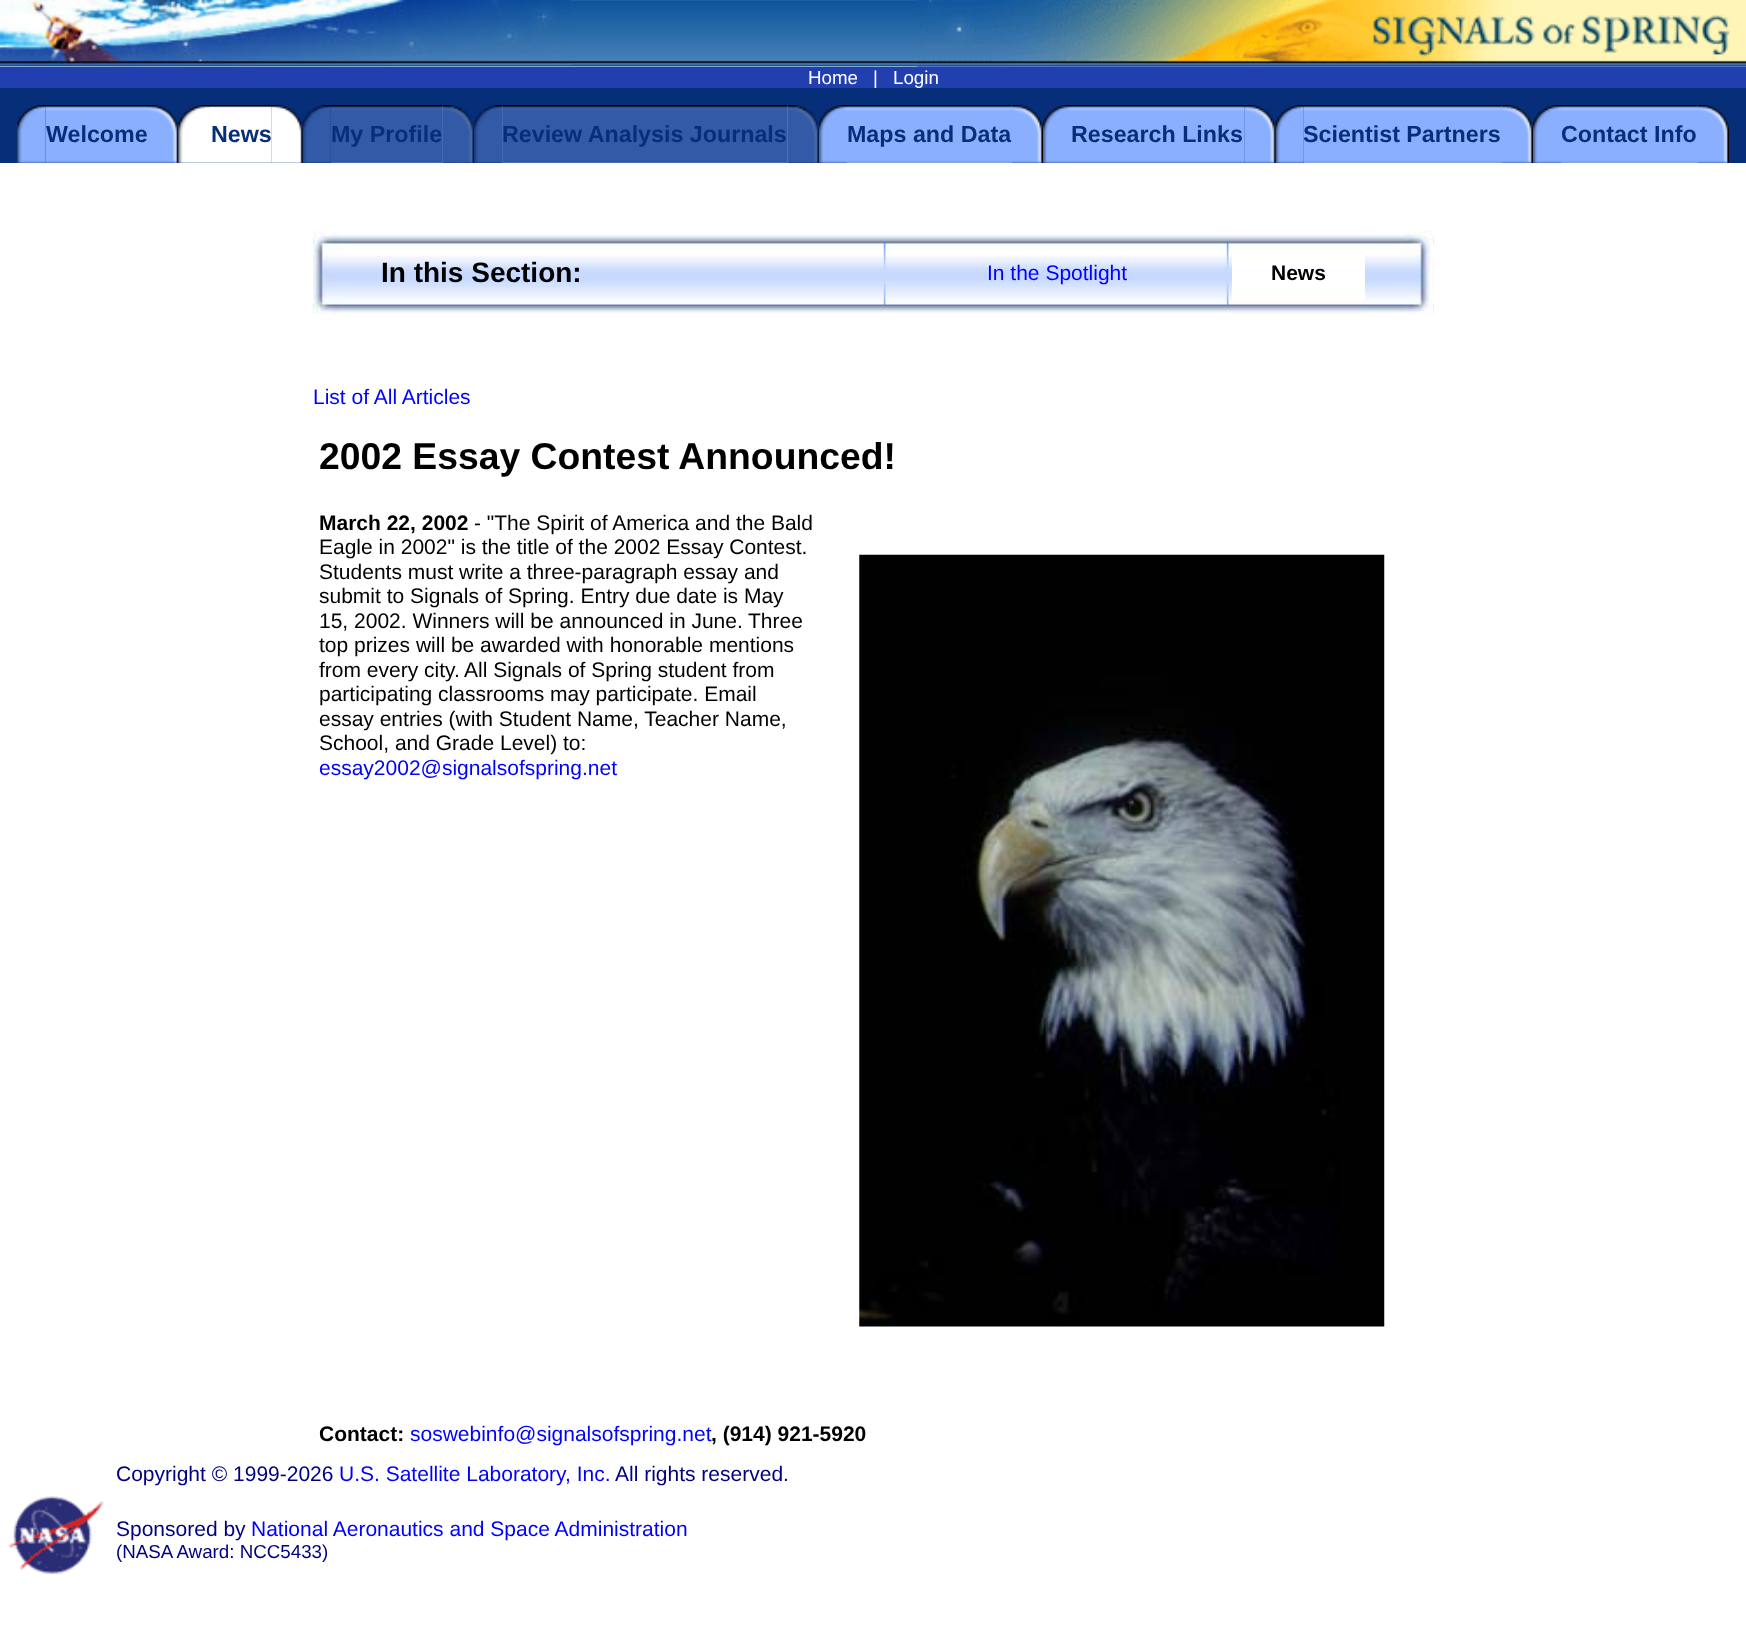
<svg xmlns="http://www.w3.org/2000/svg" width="1746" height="1651">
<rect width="100%" height="100%" fill="#fff"/>
<image x="0" y="0" width="1746" height="67" href="media/1.png"/>
<image x="0" y="0" width="571" height="65" href="media/2.png"/>
<image x="917" y="0" width="829" height="67" href="media/3.png"/>
<rect y="88" width="1746" height="75" fill="#062e79"/>
<rect y="67" width="1746" height="21" fill="#213fae"/>
<text x="808" y="84" style="font-family:Liberation Sans;font-size:18.75px;fill:#fff">Home</text>
<text x="873" y="84" style="font-family:Liberation Sans;font-size:18.75px;fill:#fff">|</text>
<text x="893" y="84" style="font-family:Liberation Sans;font-size:18.75px;fill:#fff">Login</text>
<image x="45" y="105" width="102" height="58" href="media/5.png"/>
<image x="17" y="105" width="29" height="58" href="media/4.png"/>
<text x="46" y="142" style="font-family:Liberation Sans;font-size:23.25px;font-weight:bold;fill:#062e79">Welcome</text>
<image x="147" y="105" width="32" height="58" href="media/6.png"/>
<image x="178" y="105" width="32" height="58" href="media/7.png"/>
<image x="210" y="105" width="62" height="58" href="media/8.png"/>
<text x="211" y="142" style="font-family:Liberation Sans;font-size:23.25px;font-weight:bold;fill:#062e79">News</text>
<image x="271" y="105" width="32" height="58" href="media/9.png"/>
<rect x="331" y="105" width="112" height="58" fill="#8db3df"/>
<image x="330" y="105" width="113" height="58" href="media/11.png"/>
<image x="302" y="105" width="29" height="58" href="media/10.png"/>
<text x="331" y="142" style="font-family:Liberation Sans;font-size:23.25px;font-weight:bold;fill:#062e79">My Profile</text>
<image x="442" y="105" width="33" height="58" href="media/12.png"/>
<rect x="502" y="105" width="286" height="58" fill="#8db3df"/>
<image x="502" y="105" width="286" height="58" href="media/14.png"/>
<image x="474" y="105" width="29" height="58" href="media/13.png"/>
<text x="502" y="142" style="font-family:Liberation Sans;font-size:23.25px;font-weight:bold;fill:#062e79">Review Analysis Journals</text>
<image x="787" y="105" width="32" height="58" href="media/15.png"/>
<image x="819" y="105" width="28" height="58" href="media/16.png"/>
<rect x="847" y="105" width="165" height="58" fill="#8db3df"/>
<image x="847" y="105" width="165" height="58" href="media/17.png"/>
<text x="847" y="142" style="font-family:Liberation Sans;font-size:23.25px;font-weight:bold;fill:#062e79">Maps and Data</text>
<image x="1011" y="105" width="32" height="58" href="media/18.png"/>
<image x="1043" y="105" width="28" height="58" href="media/19.png"/>
<image x="1071" y="105" width="174" height="58" href="media/20.png"/>
<text x="1071" y="142" style="font-family:Liberation Sans;font-size:23.25px;font-weight:bold;fill:#062e79">Research Links</text>
<image x="1244" y="105" width="32" height="58" href="media/21.png"/>
<rect x="1304" y="105" width="198" height="58" fill="#8db3df"/>
<image x="1303" y="105" width="199" height="58" href="media/23.png"/>
<image x="1275" y="105" width="29" height="58" href="media/22.png"/>
<text x="1303" y="142" style="font-family:Liberation Sans;font-size:23.25px;font-weight:bold;fill:#062e79">Scientist Partners</text>
<image x="1501" y="105" width="32" height="58" href="media/24.png"/>
<image x="1533" y="105" width="28" height="58" href="media/25.png"/>
<rect x="1561" y="105" width="137" height="58" fill="#8db3df"/>
<image x="1561" y="105" width="137" height="58" href="media/26.png"/>
<text x="1561" y="142" style="font-family:Liberation Sans;font-size:23.25px;font-weight:bold;fill:#062e79">Contact Info</text>
<image x="1697" y="105" width="32" height="58" href="media/27.png"/>
<image x="313" y="234" width="1121" height="79" href="media/28.png"/>
<image x="313" y="231" width="28" height="84" href="media/29.png"/>
<text x="381" y="282" style="font-family:Liberation Sans;font-size:28px;font-weight:bold;fill:#000">In this Section:</text>
<image x="883" y="236" width="3" height="78" href="media/30.png"/>
<text x="987" y="280" style="font-family:Liberation Sans;font-size:21px;fill:#00f">In the Spotlight</text>
<image x="1226" y="236" width="3" height="78" href="media/30.png"/>
<image x="1232" y="236" width="133" height="79" href="media/31.png"/>
<text x="1271" y="280" style="font-family:Liberation Sans;font-size:21px;font-weight:bold;fill:#000">News</text>
<image x="1405" y="231" width="29" height="84" href="media/32.png"/>
<text x="313" y="404" style="font-family:Liberation Sans;font-size:21px;fill:#00f">List of All Articles</text>
<text x="319" y="469" style="font-family:Liberation Sans;font-size:37.3px;font-weight:bold;fill:#000">2002 Essay Contest Announced!</text>
<text x="319" y="530" style="font-family:Liberation Sans;font-size:21px;font-weight:bold;fill:#000">March 22, 2002</text>
<text x="474" y="530" style="font-family:Liberation Sans;font-size:21px;fill:#000">- "The Spirit of America and the Bald</text>
<text x="319" y="554" style="font-family:Liberation Sans;font-size:21px;fill:#000">Eagle in 2002" is the title of the 2002 Essay Contest.</text>
<text x="319" y="579" style="font-family:Liberation Sans;font-size:21px;fill:#000">Students must write a three-paragraph essay and</text>
<text x="319" y="603" style="font-family:Liberation Sans;font-size:21px;fill:#000">submit to Signals of Spring. Entry due date is May</text>
<text x="319" y="628" style="font-family:Liberation Sans;font-size:21px;fill:#000">15, 2002. Winners will be announced in June.</text>
<text x="748" y="628" style="font-family:Liberation Sans;font-size:21px;fill:#000">Three</text>
<text x="319" y="652" style="font-family:Liberation Sans;font-size:21px;fill:#000">top prizes will be awarded with honorable mentions</text>
<text x="319" y="677" style="font-family:Liberation Sans;font-size:21px;fill:#000">from every city.</text>
<text x="464" y="677" style="font-family:Liberation Sans;font-size:21px;fill:#000">All Signals of Spring student from</text>
<text x="319" y="701" style="font-family:Liberation Sans;font-size:21px;fill:#000">participating classrooms may participate. Email</text>
<text x="319" y="726" style="font-family:Liberation Sans;font-size:21px;fill:#000">essay entries (with Student Name, Teacher Name,</text>
<text x="319" y="750" style="font-family:Liberation Sans;font-size:21px;fill:#000">School, and Grade Level) to:</text>
<text x="319" y="775" style="font-family:Liberation Sans;font-size:21px;fill:#00f">essay2002@signalsofspring.net</text>
<image x="859" y="554" width="526" height="773" href="media/33.png"/>
<text x="319" y="1441" style="font-family:Liberation Sans;font-size:21px;font-weight:bold;fill:#000">Contact:</text>
<text x="410" y="1441" style="font-family:Liberation Sans;font-size:21px;fill:#00f">soswebinfo@signalsofspring.net</text>
<text x="711" y="1441" style="font-family:Liberation Sans;font-size:21px;font-weight:bold;fill:#000">, (914) 921-5920</text>
<text x="116" y="1481" style="font-family:Liberation Sans;font-size:21px;fill:#000080">Copyright © 1999-2026</text>
<text x="339" y="1481" style="font-family:Liberation Sans;font-size:21px;fill:#00f">U.S. Satellite Laboratory, Inc.</text>
<text x="615" y="1481" style="font-family:Liberation Sans;font-size:21px;fill:#000080">All rights reserved.</text>
<image x="8" y="1496" width="96" height="79" href="media/34.png"/>
<text x="116" y="1536" style="font-family:Liberation Sans;font-size:21px;fill:#000080">Sponsored by</text>
<text x="251" y="1536" style="font-family:Liberation Sans;font-size:21px;fill:#00f">National Aeronautics and Space Administration</text>
<text x="116" y="1558" style="font-family:Liberation Sans;font-size:18.75px;fill:#000080">(NASA Award: NCC5433)</text>
</svg>
